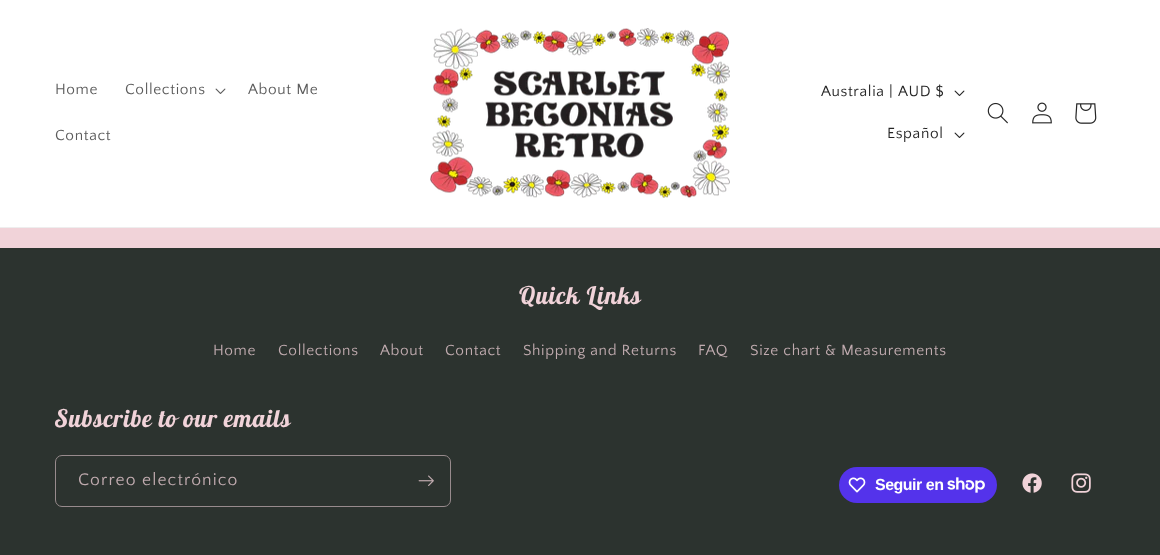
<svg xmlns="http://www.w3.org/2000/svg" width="1160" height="555">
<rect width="100%" height="100%" fill="#f1d3d9"/>
<rect width="1160" height="227" fill="#fff"/>
<rect y="227" width="1160" height="1" fill="#eee"/>
<text x="55" y="94" style="font-family:Quattrocento Sans;font-size:15.4px;letter-spacing:0.65px;fill:#5c5c5c">Home</text>
<text x="125" y="94" style="font-family:Quattrocento Sans;font-size:15.4px;letter-spacing:0.65px;fill:#5c5c5c">Collections</text>
<image x="215" y="88" width="11" height="6" href="media/1.png"/>
<text x="248" y="94" style="font-family:Quattrocento Sans;font-size:15.4px;letter-spacing:0.65px;fill:#5c5c5c">About Me</text>
<text x="55" y="140" style="font-family:Quattrocento Sans;font-size:15.4px;letter-spacing:0.65px;fill:#5c5c5c">Contact</text>
<image x="430" y="28" width="300" height="170" href="media/2.png"/>
<text x="821" y="96" style="font-family:Quattrocento Sans;font-size:15.4px;letter-spacing:0.65px;fill:#252525">Australia |</text>
<text x="898" y="96" style="font-family:Quattrocento Sans;font-size:15.4px;letter-spacing:0.65px;fill:#252525">AUD $</text>
<image x="954" y="90" width="11" height="6" href="media/3.png"/>
<text x="887" y="138" style="font-family:Quattrocento Sans;font-size:15.4px;letter-spacing:0.65px;fill:#252525">Español</text>
<image x="954" y="132" width="11" height="6" href="media/3.png"/>
<image x="987" y="102" width="21" height="22" href="media/4.png"/>
<image x="1032" y="102" width="20" height="22" href="media/5.png"/>
<image x="1075" y="103" width="22" height="21" href="media/6.png"/>
<rect y="248" width="1160" height="307" fill="#2c332f"/>
<text x="518" y="304" style="font-family:Lobster Two;font-size:24.25px;font-weight:bold;font-style:italic;letter-spacing:0.8px;fill:#f1d3d9">Quick Links</text>
<text x="213" y="355" style="font-family:Quattrocento Sans;font-size:15.4px;letter-spacing:0.65px;fill:#c0abaf">Home</text>
<text x="278" y="355" style="font-family:Quattrocento Sans;font-size:15.4px;letter-spacing:0.65px;fill:#c0abaf">Collections</text>
<text x="380" y="355" style="font-family:Quattrocento Sans;font-size:15.4px;letter-spacing:0.65px;fill:#c0abaf">About</text>
<text x="445" y="355" style="font-family:Quattrocento Sans;font-size:15.4px;letter-spacing:0.65px;fill:#c0abaf">Contact</text>
<text x="523" y="355" style="font-family:Quattrocento Sans;font-size:15.4px;letter-spacing:0.65px;fill:#c0abaf">Shipping and Returns</text>
<text x="698" y="355" style="font-family:Quattrocento Sans;font-size:15.4px;letter-spacing:0.65px;fill:#c0abaf">FAQ</text>
<text x="750" y="355" style="font-family:Quattrocento Sans;font-size:15.4px;letter-spacing:0.65px;fill:#c0abaf">Size chart &amp; Measurements</text>
<text x="55" y="427" style="font-family:Lobster Two;font-size:24.25px;font-weight:bold;font-style:italic;letter-spacing:0.8px;fill:#f1d3d9">Subscribe to our emails</text>
<rect x="55.5" y="455.5" width="395" height="51" rx="6.5" fill="none" stroke="#988b8d"/>
<text x="78" y="485" style="font-family:Quattrocento Sans;font-size:17.5px;letter-spacing:1.1px;fill:#c0abaf">Correo electrónico</text>
<image x="418" y="475" width="16" height="11" href="media/7.png"/>
<rect x="839" y="467" width="158" height="36" rx="18" fill="#5433eb"/>
<image x="848" y="477" width="18" height="16" href="media/8.png"/>
<text x="875" y="490" style="font-family:Liberation Sans;font-size:16px;font-weight:bold;letter-spacing:-0.5px;fill:#fff">Seguir en</text>
<image x="947" y="477" width="38" height="16" href="media/9.png"/>
<image x="1022" y="473" width="20" height="20" href="media/10.png"/>
<image x="1071" y="473" width="20" height="20" href="media/11.png"/>
</svg>
